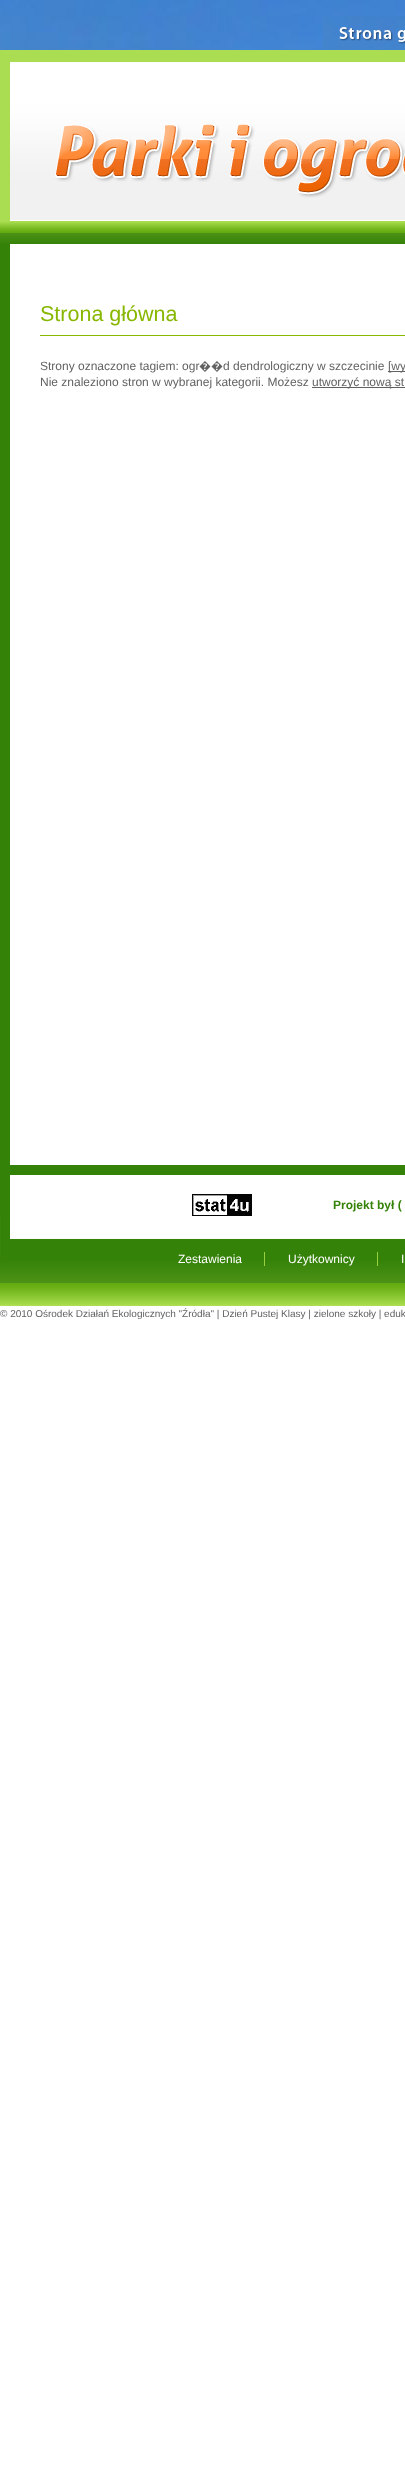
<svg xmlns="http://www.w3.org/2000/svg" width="405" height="2488">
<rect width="100%" height="100%" fill="#fff"/>
<image x="0" y="0" width="405" height="50" href="media/1.png"/>
<rect y="244" width="10" height="921" fill="#358209"/>
<image x="322" y="16" width="83" height="34" href="media/2.png"/>
<image x="0" y="50" width="405" height="194" href="media/3.png"/>
<image x="55" y="124" width="350" height="74" href="media/4.png"/>
<rect x="40" y="335" width="365" height="1" fill="#87b700"/>
<text x="40" y="321" style="font-family:Liberation Sans;font-size:21.5px;fill:#87b700">Strona główna</text>
<text x="40" y="370" style="font-family:Liberation Sans;font-size:12px;fill:#626262">Strony oznaczone tagiem: ogr</text>
<text x="199" y="370" style="font-family:Noto Sans;font-size:12px;fill:#626262">��</text>
<text x="223" y="370" style="font-family:Liberation Sans;font-size:12px;fill:#626262">d dendrologiczny w szczecinie</text>
<rect x="388" y="371" width="17" height="1" fill="#626262"/>
<text x="388" y="370" style="font-family:Liberation Sans;font-size:12px;fill:#626262">[wy</text>
<text x="40" y="386" style="font-family:Liberation Sans;font-size:12px;fill:#626262">Nie znaleziono stron w wybranej kategorii. Możesz</text>
<rect x="312" y="387" width="93" height="1" fill="#626262"/>
<text x="312" y="386" style="font-family:Liberation Sans;font-size:12px;fill:#626262">utworzyć nową st</text>
<image x="0" y="1165" width="405" height="141" href="media/5.png"/>
<image x="192" y="1194" width="60" height="22" href="media/6.png"/>
<text x="333" y="1209" style="font-family:Liberation Sans;font-size:12px;font-weight:bold;fill:#358209">Projekt był (</text>
<text x="178" y="1263" style="font-family:Liberation Sans;font-size:12px;fill:#fff">Zestawienia</text>
<text x="288" y="1263" style="font-family:Liberation Sans;font-size:12px;fill:#fff">Użytkownicy</text>
<rect x="264" y="1252" width="1" height="14" fill="#98d13f"/>
<text x="401" y="1263" style="font-family:Liberation Sans;font-size:12px;fill:#fff">I</text>
<rect x="377" y="1252" width="1" height="14" fill="#98d13f"/>
<text x="0" y="1317" style="font-family:Liberation Sans;font-size:10px;fill:#626262">© 2010 Ośrodek Działań Ekologicznych "Źródła" | Dzień Pustej Klasy | zielone szkoły | eduk</text>
</svg>
